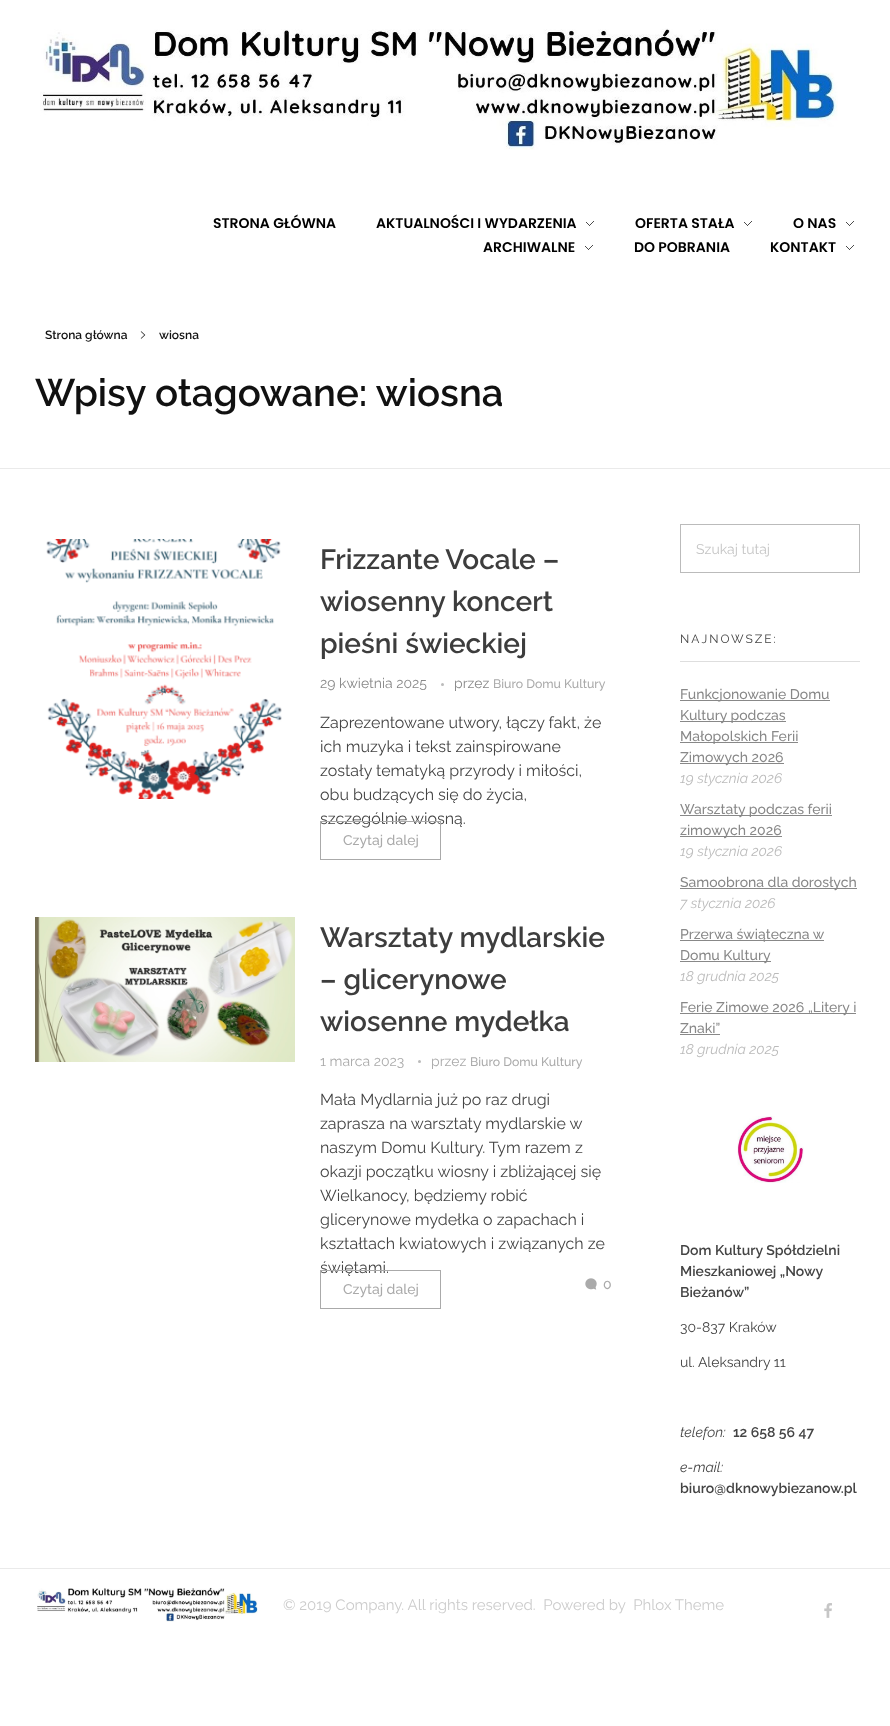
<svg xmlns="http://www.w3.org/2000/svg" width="890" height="1726">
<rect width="100%" height="100%" fill="#fff"/>
<image x="40" y="28" width="798" height="122" href="media/1.png"/>
<text x="213" y="228" style="font-family:Poppins;font-size:14px;font-weight:600;fill:#000">STRONA GŁÓWNA</text>
<text x="376" y="228" style="font-family:Poppins;font-size:14px;font-weight:600;fill:#000">AKTUALNOŚCI I WYDARZENIA</text>
<image x="586" y="221" width="8" height="5" href="media/2.png"/>
<text x="635" y="228" style="font-family:Poppins;font-size:14px;font-weight:600;fill:#000">OFERTA STAŁA</text>
<image x="744" y="221" width="8" height="5" href="media/2.png"/>
<text x="793" y="228" style="font-family:Poppins;font-size:14px;font-weight:600;fill:#000">O NAS</text>
<image x="846" y="221" width="8" height="5" href="media/2.png"/>
<text x="483" y="252" style="font-family:Poppins;font-size:14px;font-weight:600;fill:#000">ARCHIWALNE</text>
<image x="585" y="245" width="8" height="5" href="media/2.png"/>
<text x="634" y="252" style="font-family:Poppins;font-size:14px;font-weight:600;fill:#000">DO POBRANIA</text>
<text x="770" y="252" style="font-family:Poppins;font-size:14px;font-weight:600;fill:#000">KONTAKT</text>
<image x="846" y="245" width="8" height="5" href="media/2.png"/>
<rect y="468" width="890" height="1" fill="#eaeaea"/>
<text x="45" y="339" style="font-family:Raleway;font-size:12px;font-weight:600;fill:#111">Strona główna</text>
<image x="140" y="331" width="6" height="8" href="media/3.png"/>
<text x="159" y="339" style="font-family:Raleway;font-size:12px;font-weight:600;fill:#111">wiosna</text>
<text x="35" y="406" style="font-family:Raleway;font-size:38.4px;font-weight:600;fill:#111">Wpisy otagowane: wiosna</text>
<image x="46" y="539" width="236" height="260" href="media/4.png"/>
<text x="320" y="569" style="font-family:Raleway;font-size:28px;font-weight:600;fill:#3d3d3d">Frizzante Vocale –</text>
<text x="320" y="611" style="font-family:Raleway;font-size:28px;font-weight:600;fill:#3d3d3d">wiosenny koncert</text>
<text x="320" y="653" style="font-family:Raleway;font-size:28px;font-weight:600;fill:#3d3d3d">pieśni świeckiej</text>
<text x="320" y="688" style="font-family:Raleway;font-size:14px;fill:#888">29 kwietnia 2025</text>
<circle cx="442.5" cy="684.5" r="1.5" fill="#bbb"/>
<text x="454" y="688" style="font-family:Raleway;font-size:14px;fill:#888">przez</text>
<text x="493" y="688" style="font-family:Raleway;font-size:12.25px;font-weight:500;fill:#aaa">Biuro Domu Kultury</text>
<text x="320" y="728" style="font-family:Raleway;font-size:16px;fill:#444">Zaprezentowane utwory, łączy fakt, że</text>
<text x="320" y="752" style="font-family:Raleway;font-size:16px;fill:#444">ich muzyka i tekst zainspirowane</text>
<text x="320" y="776" style="font-family:Raleway;font-size:16px;fill:#444">zostały tematyką przyrody i miłości,</text>
<text x="320" y="800" style="font-family:Raleway;font-size:16px;fill:#444">obu budzących się do życia,</text>
<text x="320" y="824" style="font-family:Raleway;font-size:16px;fill:#444">szczególnie wiosną.</text>
<rect x="320.5" y="821.5" width="120" height="38" fill="none" stroke="#aaa"/>
<text x="343" y="845" style="font-family:Raleway;font-size:14px;font-weight:500;fill:#aaa">Czytaj dalej</text>
<image x="35" y="917" width="260" height="145" href="media/5.png"/>
<text x="320" y="947" style="font-family:Raleway;font-size:28px;font-weight:600;fill:#3d3d3d">Warsztaty mydlarskie</text>
<text x="320" y="989" style="font-family:Raleway;font-size:28px;font-weight:600;fill:#3d3d3d">– glicerynowe</text>
<text x="320" y="1031" style="font-family:Raleway;font-size:28px;font-weight:600;fill:#3d3d3d">wiosenne mydełka</text>
<text x="320" y="1066" style="font-family:Raleway;font-size:14px;fill:#aaa">1 marca 2023</text>
<circle cx="419.5" cy="1061.5" r="1.5" fill="#bbb"/>
<text x="431" y="1066" style="font-family:Raleway;font-size:14px;fill:#aaa">przez</text>
<text x="470" y="1066" style="font-family:Raleway;font-size:12.25px;font-weight:500;fill:#aaa">Biuro Domu Kultury</text>
<text x="320" y="1105" style="font-family:Raleway;font-size:16px;fill:#444">Mała Mydlarnia już po raz drugi</text>
<text x="320" y="1129" style="font-family:Raleway;font-size:16px;fill:#444">zaprasza na warsztaty mydlarskie w</text>
<text x="320" y="1153" style="font-family:Raleway;font-size:16px;fill:#444">naszym Domu Kultury. Tym razem z</text>
<text x="320" y="1177" style="font-family:Raleway;font-size:16px;fill:#444">okazji początku wiosny i zbliżającej się</text>
<text x="320" y="1201" style="font-family:Raleway;font-size:16px;fill:#444">Wielkanocy, będziemy robić</text>
<text x="320" y="1225" style="font-family:Raleway;font-size:16px;fill:#444">glicerynowe mydełka o zapachach i</text>
<text x="320" y="1249" style="font-family:Raleway;font-size:16px;fill:#444">kształtach kwiatowych i związanych ze</text>
<text x="320" y="1273" style="font-family:Raleway;font-size:16px;fill:#444">świętami.</text>
<rect x="320.5" y="1270.5" width="120" height="38" fill="none" stroke="#aaa"/>
<text x="343" y="1294" style="font-family:Raleway;font-size:14px;font-weight:500;fill:#aaa">Czytaj dalej</text>
<image x="585" y="1278" width="12" height="12" href="media/6.png"/>
<text x="603" y="1289" style="font-family:Raleway;font-size:14px;font-weight:500;fill:#aaa">0</text>
<rect x="680.5" y="524.5" width="179" height="48" fill="none" stroke="#bbb"/>
<text x="696" y="554" style="font-family:Raleway;font-size:14px;fill:#c5c5c5">Szukaj tutaj</text>
<rect x="680" y="661" width="180" height="1" fill="#dedede"/>
<text x="680" y="643" style="font-family:Raleway;font-size:12px;letter-spacing:2px;fill:#444">NAJNOWSZE:</text>
<rect x="680" y="700" width="150" height="1" fill="#888"/>
<text x="680" y="699" style="font-family:Raleway;font-size:14px;font-weight:500;fill:#888">Funkcjonowanie Domu</text>
<rect x="680" y="721" width="106" height="1" fill="#888"/>
<text x="680" y="720" style="font-family:Raleway;font-size:14px;font-weight:500;fill:#888">Kultury podczas</text>
<rect x="680" y="742" width="118" height="1" fill="#888"/>
<text x="680" y="741" style="font-family:Raleway;font-size:14px;font-weight:500;fill:#888">Małopolskich Ferii</text>
<rect x="680" y="763" width="104" height="1" fill="#888"/>
<text x="680" y="762" style="font-family:Raleway;font-size:14px;font-weight:500;fill:#888">Zimowych 2026</text>
<text x="680" y="783" style="font-family:Raleway;font-size:14px;font-style:italic;fill:#bbb">19 stycznia 2026</text>
<rect x="680" y="815" width="152" height="1" fill="#888"/>
<text x="680" y="814" style="font-family:Raleway;font-size:14px;font-weight:500;fill:#888">Warsztaty podczas ferii</text>
<rect x="680" y="836" width="102" height="1" fill="#888"/>
<text x="680" y="835" style="font-family:Raleway;font-size:14px;font-weight:500;fill:#888">zimowych 2026</text>
<text x="680" y="856" style="font-family:Raleway;font-size:14px;font-style:italic;fill:#bbb">19 stycznia 2026</text>
<rect x="680" y="888" width="177" height="1" fill="#888"/>
<text x="680" y="887" style="font-family:Raleway;font-size:14px;font-weight:500;fill:#888">Samoobrona dla dorosłych</text>
<text x="680" y="908" style="font-family:Raleway;font-size:14px;font-style:italic;fill:#bbb">7 stycznia 2026</text>
<rect x="680" y="940" width="144" height="1" fill="#888"/>
<text x="680" y="939" style="font-family:Raleway;font-size:14px;font-weight:500;fill:#888">Przerwa świąteczna w</text>
<rect x="680" y="961" width="91" height="1" fill="#888"/>
<text x="680" y="960" style="font-family:Raleway;font-size:14px;font-weight:500;fill:#888">Domu Kultury</text>
<text x="680" y="981" style="font-family:Raleway;font-size:14px;font-style:italic;fill:#bbb">18 grudnia 2025</text>
<rect x="680" y="1013" width="176" height="1" fill="#888"/>
<text x="680" y="1012" style="font-family:Raleway;font-size:14px;font-weight:500;fill:#888">Ferie Zimowe 2026 „Litery i</text>
<text x="680" y="1033" style="font-family:Raleway;font-size:14px;font-weight:500;fill:#888">Znaki”</text>
<rect x="680" y="1034" width="40" height="1" fill="#888"/>
<text x="680" y="1054" style="font-family:Raleway;font-size:14px;font-style:italic;fill:#bbb">18 grudnia 2025</text>
<image x="737" y="1116" width="67" height="67" href="media/7.png"/>
<text x="680" y="1255" style="font-family:Raleway;font-size:14px;font-weight:600;fill:#444">Dom Kultury Spółdzielni</text>
<text x="680" y="1276" style="font-family:Raleway;font-size:14px;font-weight:600;fill:#444">Mieszkaniowej „Nowy</text>
<text x="680" y="1297" style="font-family:Raleway;font-size:14px;font-weight:600;fill:#444">Bieżanów”</text>
<text x="680" y="1332" style="font-family:Raleway;font-size:14px;fill:#444">30-837 Kraków</text>
<text x="680" y="1367" style="font-family:Raleway;font-size:14px;fill:#444">ul. Aleksandry 11</text>
<text x="680" y="1437" style="font-family:Raleway;font-size:14px;font-style:italic;fill:#444">telefon:</text>
<text x="733" y="1437" style="font-family:Raleway;font-size:14px;font-weight:600;fill:#444">12 658 56 47</text>
<text x="680" y="1472" style="font-family:Raleway;font-size:14px;font-style:italic;fill:#444">e-mail:</text>
<text x="680" y="1493" style="font-family:Raleway;font-size:14px;font-weight:600;fill:#444">biuro@dknowybiezanow.pl</text>
<rect y="1568" width="890" height="1" fill="#eaeaea"/>
<image x="37" y="1587" width="221" height="35" href="media/8.png"/>
<text x="283" y="1610" style="font-family:Raleway;font-size:15px;fill:#ccc" xml:space="preserve">© 2019 Company. All rights reserved.  Powered by  Phlox Theme</text>
<image x="824" y="1603" width="8" height="15" href="media/9.png"/>
</svg>
